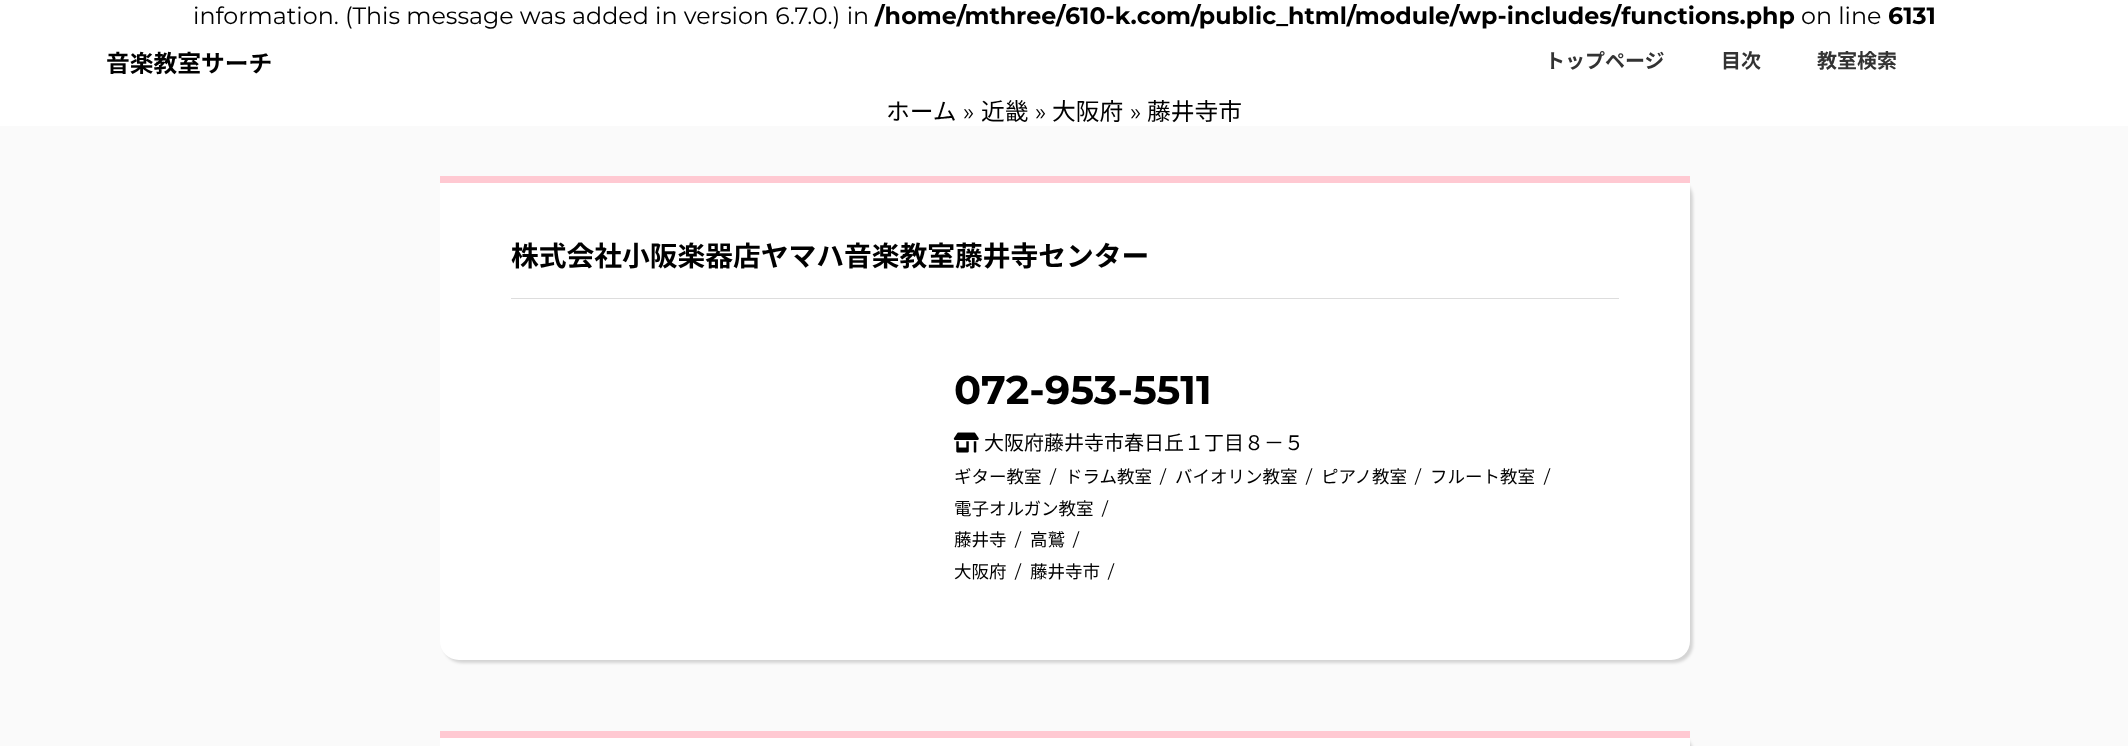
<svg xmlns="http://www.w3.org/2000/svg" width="2128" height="746">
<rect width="100%" height="100%" fill="#fff"/>
<text x="193" y="24" style="font-family:Montserrat;font-size:23.75px;fill:#000">information. (This message was added in version 6.7.0.) in</text>
<text x="875" y="24" style="font-family:Montserrat;font-size:23.75px;font-weight:bold;fill:#000">/home/mthree/610-k.com/public_html/module/wp-includes/functions.php</text>
<text x="1801" y="24" style="font-family:Montserrat;font-size:23.75px;fill:#000">on line</text>
<text x="1888" y="24" style="font-family:Montserrat;font-size:23.75px;font-weight:bold;fill:#000">6131</text>
<text x="106" y="72" style="font-family:Noto Sans JP;font-size:23.75px;font-weight:bold;fill:#000">音楽教室サーチ</text>
<text x="1545" y="68" style="font-family:Noto Sans JP;font-size:20px;font-weight:bold;fill:#333">トップページ</text>
<text x="1721" y="68" style="font-family:Noto Sans JP;font-size:20px;font-weight:bold;fill:#333">目次</text>
<text x="1817" y="68" style="font-family:Noto Sans JP;font-size:20px;font-weight:bold;fill:#333">教室検索</text>
<text x="886" y="120" style="font-family:Noto Sans JP;font-size:23.75px;fill:#000">ホーム</text>
<text x="963" y="120" style="font-family:Montserrat;font-size:23.75px;fill:#000">»</text>
<text x="981" y="120" style="font-family:Noto Sans JP;font-size:23.75px;fill:#000">近畿</text>
<text x="1035" y="120" style="font-family:Montserrat;font-size:23.75px;fill:#000">»</text>
<text x="1052" y="120" style="font-family:Noto Sans JP;font-size:23.75px;fill:#000">大阪府</text>
<text x="1130" y="120" style="font-family:Montserrat;font-size:23.75px;fill:#000">»</text>
<text x="1147" y="120" style="font-family:Noto Sans JP;font-size:23.75px;fill:#000">藤井寺市</text>
<rect y="126" width="2128" height="620" fill="#fafafa"/>
<rect x="443" y="179" width="1250" height="484" rx="19" fill="#00000026" filter="blur(1.5px)"/>
<path d="M440 176h1250v465c0 10.5-8.5 19-19 19h-1212c-10.5 0-19-8.5-19-19z" fill="#fff"/>
<rect x="440" y="176" width="1250" height="7" fill="#ffc9d2"/>
<rect x="511" y="298" width="1108" height="1" fill="#ddd"/>
<text x="511" y="266" style="font-family:Noto Sans JP;font-size:27.75px;font-weight:bold;fill:#000">株式会社小阪楽器店ヤマハ音楽教室藤井寺センター</text>
<text x="954" y="404" style="font-family:Montserrat;font-size:40px;font-weight:bold;fill:#000">072-953-5511</text>
<image x="953" y="432" width="26" height="21" href="media/1.png"/>
<text x="984" y="450" style="font-family:Noto Sans JP;font-size:20px;fill:#000">大阪府藤井寺市春日丘１丁目８－５</text>
<text x="954" y="483" style="font-family:Noto Sans JP;font-size:17.5px;fill:#000">ギター教室</text>
<text x="1050" y="483" style="font-family:Montserrat;font-size:17.5px;fill:#000">/</text>
<text x="1065" y="483" style="font-family:Noto Sans JP;font-size:17.5px;fill:#000">ドラム教室</text>
<text x="1160" y="483" style="font-family:Montserrat;font-size:17.5px;fill:#000">/</text>
<text x="1175" y="483" style="font-family:Noto Sans JP;font-size:17.5px;fill:#000">バイオリン教室</text>
<text x="1306" y="483" style="font-family:Montserrat;font-size:17.5px;fill:#000">/</text>
<text x="1321" y="483" style="font-family:Noto Sans JP;font-size:17.5px;fill:#000">ピアノ教室</text>
<text x="1415" y="483" style="font-family:Montserrat;font-size:17.5px;fill:#000">/</text>
<text x="1430" y="483" style="font-family:Noto Sans JP;font-size:17.5px;fill:#000">フルート教室</text>
<text x="1544" y="483" style="font-family:Montserrat;font-size:17.5px;fill:#000">/</text>
<text x="954" y="515" style="font-family:Noto Sans JP;font-size:17.5px;fill:#000">電子オルガン教室</text>
<text x="1102" y="515" style="font-family:Montserrat;font-size:17.5px;fill:#000">/</text>
<text x="954" y="546" style="font-family:Noto Sans JP;font-size:17.5px;fill:#000">藤井寺</text>
<text x="1015" y="546" style="font-family:Montserrat;font-size:17.5px;fill:#000">/</text>
<text x="1030" y="546" style="font-family:Noto Sans JP;font-size:17.5px;fill:#000">高鷲</text>
<text x="1073" y="546" style="font-family:Montserrat;font-size:17.5px;fill:#000">/</text>
<text x="954" y="578" style="font-family:Noto Sans JP;font-size:17.5px;fill:#000">大阪府</text>
<text x="1015" y="578" style="font-family:Montserrat;font-size:17.5px;fill:#000">/</text>
<text x="1030" y="578" style="font-family:Noto Sans JP;font-size:17.5px;fill:#000">藤井寺市</text>
<text x="1108" y="578" style="font-family:Montserrat;font-size:17.5px;fill:#000">/</text>
<rect x="443" y="734" width="1250" height="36" rx="19" fill="#00000026" filter="blur(1.5px)"/>
<rect x="440" y="738" width="1250" height="8" fill="#fff"/>
<rect x="440" y="731" width="1250" height="7" fill="#ffc9d2"/>
</svg>
